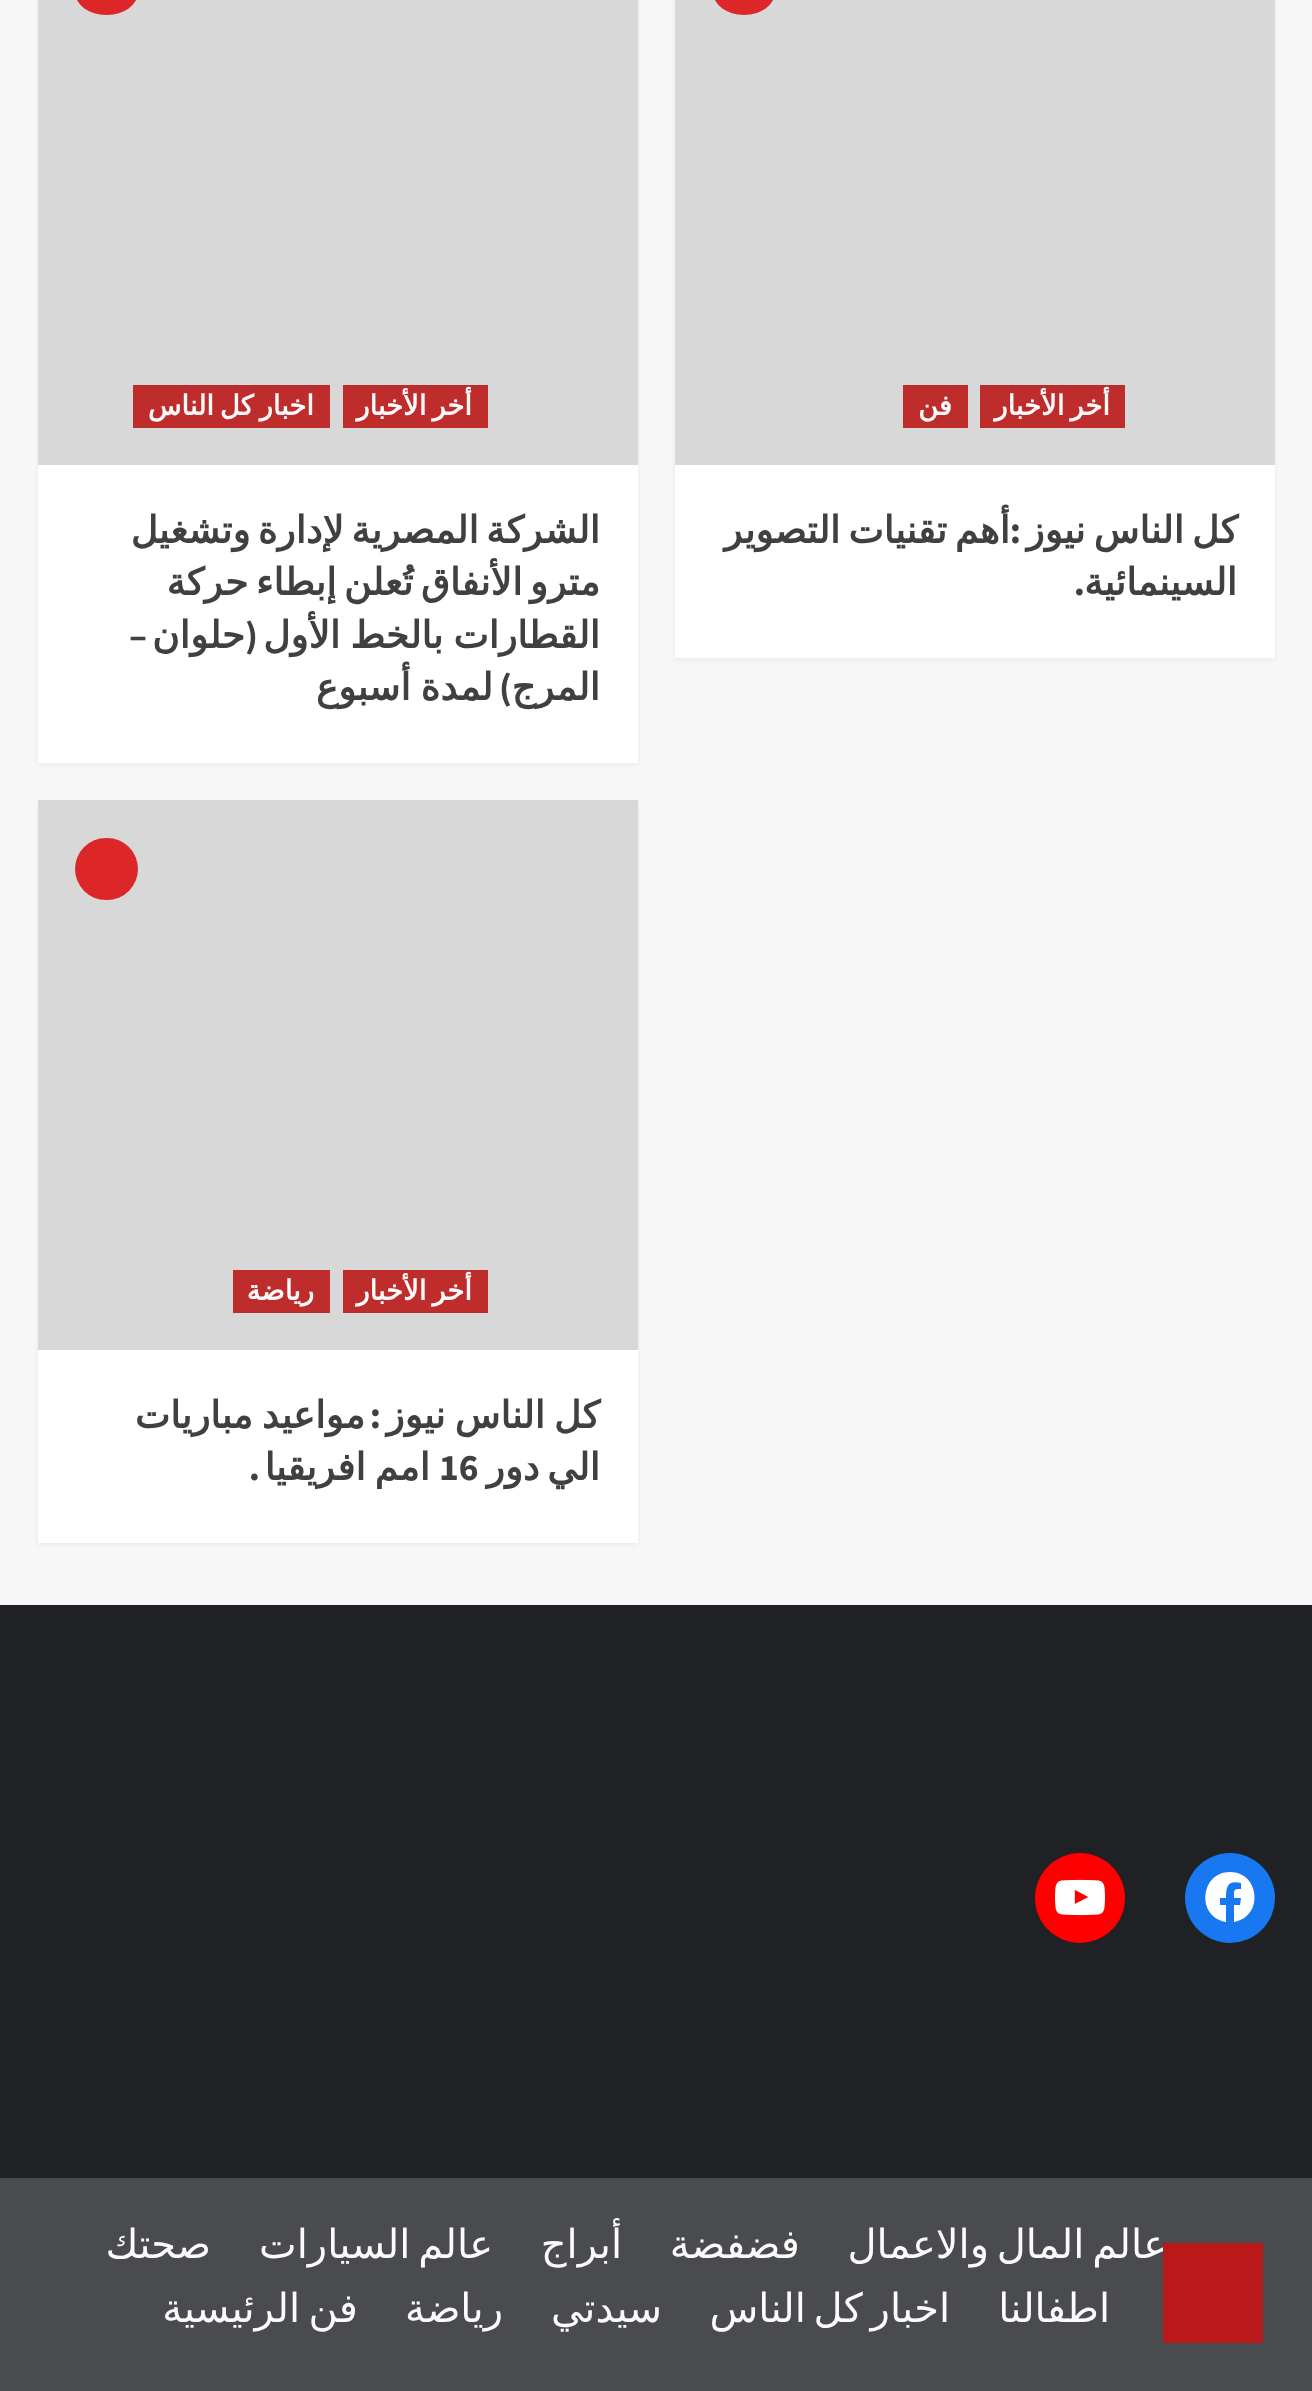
<svg xmlns="http://www.w3.org/2000/svg" width="1312" height="2391">
<rect width="100%" height="100%" fill="#f7f7f7"/>
<rect x="675" y="-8" width="600" height="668" fill="#0000000d" filter="blur(2.5px)"/>
<rect x="675" y="465" width="600" height="193" fill="#fff"/>
<rect x="675" width="600" height="465" fill="#d8d8d8"/>
<rect x="713" y="-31" width="62" height="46" rx="31" fill="#dd2627"/>
<rect x="980" y="385" width="145" height="43" fill="#be2c2c"/>
<text x="1110" y="415" word-spacing="-3" style="font-family:DejaVu Sans;font-size:27.5px;font-weight:bold;direction:rtl;fill:#fbfbfb">أخر الأخبار</text>
<rect x="903" y="385" width="65" height="43" fill="#be2c2c"/>
<text x="952" y="415" style="font-family:DejaVu Sans;font-size:27.5px;font-weight:bold;direction:rtl;fill:#fbfbfb">فن</text>
<text x="1238" y="543" word-spacing="-4" style="font-family:DejaVu Sans;font-size:37.5px;font-weight:bold;direction:rtl;fill:#404040">كل الناس نيوز</text>
<text x="1021" y="543" style="font-family:Source Sans Pro;font-size:37.5px;font-weight:bold;direction:rtl;fill:#404040">:</text>
<text x="1010" y="543" word-spacing="-4" style="font-family:DejaVu Sans;font-size:37.5px;font-weight:bold;direction:rtl;fill:#404040">أهم تقنيات التصوير</text>
<text x="1237" y="595" style="font-family:DejaVu Sans;font-size:37.5px;font-weight:bold;direction:rtl;fill:#404040">السينمائية</text>
<text x="1085" y="595" style="font-family:Source Sans Pro;font-size:37.5px;font-weight:bold;direction:rtl;fill:#404040">.</text>
<rect x="38" y="-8" width="600" height="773" fill="#0000000d" filter="blur(2.5px)"/>
<rect x="38" y="465" width="600" height="298" fill="#fff"/>
<rect x="38" width="600" height="465" fill="#d8d8d8"/>
<rect x="75" y="-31" width="63" height="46" rx="31" fill="#dd2627"/>
<rect x="343" y="385" width="145" height="43" fill="#be2c2c"/>
<text x="472" y="415" word-spacing="-3" style="font-family:DejaVu Sans;font-size:27.5px;font-weight:bold;direction:rtl;fill:#fbfbfb">أخر الأخبار</text>
<rect x="133" y="385" width="197" height="43" fill="#be2c2c"/>
<text x="314" y="415" word-spacing="-3" style="font-family:DejaVu Sans;font-size:27.5px;font-weight:bold;direction:rtl;fill:#fbfbfb">اخبار كل الناس</text>
<text x="600" y="543" word-spacing="-4.5" style="font-family:DejaVu Sans;font-size:37.5px;font-weight:bold;direction:rtl;fill:#404040">الشركة المصرية لإدارة وتشغيل</text>
<text x="600" y="595" word-spacing="-4.5" style="font-family:DejaVu Sans;font-size:37.5px;font-weight:bold;direction:rtl;fill:#404040">مترو الأنفاق تُعلن إبطاء حركة</text>
<text x="600" y="648" word-spacing="-2" style="font-family:DejaVu Sans;font-size:37.5px;font-weight:bold;direction:rtl;fill:#404040">القطارات بالخط الأول</text>
<text x="258" y="648" style="font-family:Source Sans Pro;font-size:37.5px;font-weight:bold;direction:rtl;fill:#404040">(</text>
<text x="245" y="648" style="font-family:DejaVu Sans;font-size:37.5px;font-weight:bold;direction:rtl;fill:#404040">حلوان</text>
<text x="147" y="648" style="font-family:Source Sans Pro;font-size:37.5px;font-weight:bold;direction:rtl;fill:#404040">–</text>
<text x="600" y="700" style="font-family:DejaVu Sans;font-size:37.5px;font-weight:bold;direction:rtl;fill:#404040">المرج</text>
<text x="512" y="700" style="font-family:Source Sans Pro;font-size:37.5px;font-weight:bold;direction:rtl;fill:#404040">)</text>
<text x="493" y="700" word-spacing="-2" style="font-family:DejaVu Sans;font-size:37.5px;font-weight:bold;direction:rtl;fill:#404040">لمدة أسبوع</text>
<rect x="38" y="803" width="600" height="742" fill="#0000000d" filter="blur(2.5px)"/>
<rect x="38" y="1350" width="600" height="193" fill="#fff"/>
<rect x="38" y="800" width="600" height="550" fill="#d8d8d8"/>
<rect x="75" y="838" width="63" height="62" rx="31" fill="#dd2627"/>
<rect x="343" y="1270" width="145" height="43" fill="#be2c2c"/>
<text x="472" y="1300" word-spacing="-3" style="font-family:DejaVu Sans;font-size:27.5px;font-weight:bold;direction:rtl;fill:#fbfbfb">أخر الأخبار</text>
<rect x="233" y="1270" width="97" height="43" fill="#be2c2c"/>
<text x="314" y="1300" style="font-family:DejaVu Sans;font-size:27.5px;font-weight:bold;direction:rtl;fill:#fbfbfb">رياضة</text>
<text x="600" y="1428" word-spacing="-3" style="font-family:DejaVu Sans;font-size:37.5px;font-weight:bold;direction:rtl;fill:#404040">كل الناس نيوز</text>
<text x="381" y="1428" style="font-family:Source Sans Pro;font-size:37.5px;font-weight:bold;direction:rtl;fill:#404040">:</text>
<text x="365" y="1428" word-spacing="-3" style="font-family:DejaVu Sans;font-size:37.5px;font-weight:bold;direction:rtl;fill:#404040">مواعيد مباريات</text>
<text x="600" y="1480" word-spacing="-4.5" style="font-family:DejaVu Sans;font-size:37.5px;font-weight:bold;direction:rtl;fill:#404040">الي دور</text>
<text x="439" y="1480" style="font-family:Source Sans Pro;font-size:37.5px;font-weight:bold;fill:#404040">16</text>
<text x="430" y="1480" word-spacing="-3" style="font-family:DejaVu Sans;font-size:37.5px;font-weight:bold;direction:rtl;fill:#404040">امم افريقيا</text>
<text x="260" y="1480" style="font-family:Source Sans Pro;font-size:37.5px;font-weight:bold;direction:rtl;fill:#404040">.</text>
<rect y="1605" width="1312" height="573" fill="#1f2125"/>
<circle cx="1230" cy="1898" r="45" fill="#1778f2"/>
<path d="M1230 1872c-30 0-34 45-4 50v-17h-6v-7h6c0-12 2-18 15-15v6c-8 0-7 1-7 9h7l-1 7h-6v17c30-5 26-50-4-50z" fill="#fff"/>
<circle cx="1080" cy="1898" r="45" fill="#f00"/>
<image x="1055" y="1879" width="50" height="37" href="media/1.png"/>
<rect y="2178" width="1312" height="213" fill="#494b4e"/>
<text x="1167" y="2258" word-spacing="-5" style="font-family:DejaVu Sans;font-size:40px;direction:rtl;fill:#fbfbfb">عالم المال والاعمال</text>
<text x="800" y="2258" style="font-family:DejaVu Sans;font-size:40px;direction:rtl;fill:#fbfbfb">فضفضة</text>
<text x="622" y="2258" style="font-family:DejaVu Sans;font-size:40px;direction:rtl;fill:#fbfbfb">أبراج</text>
<text x="493" y="2258" word-spacing="-5" style="font-family:DejaVu Sans;font-size:40px;direction:rtl;fill:#fbfbfb">عالم السيارات</text>
<text x="211" y="2258" style="font-family:DejaVu Sans;font-size:40px;direction:rtl;fill:#fbfbfb">صحتك</text>
<text x="1110" y="2322" style="font-family:DejaVu Sans;font-size:40px;direction:rtl;fill:#fbfbfb">اطفالنا</text>
<text x="950" y="2322" word-spacing="-5" style="font-family:DejaVu Sans;font-size:40px;direction:rtl;fill:#fbfbfb">اخبار كل الناس</text>
<text x="662" y="2322" style="font-family:DejaVu Sans;font-size:40px;direction:rtl;fill:#fbfbfb">سيدتي</text>
<text x="503" y="2322" style="font-family:DejaVu Sans;font-size:40px;direction:rtl;fill:#fbfbfb">رياضة</text>
<text x="358" y="2322" style="font-family:DejaVu Sans;font-size:40px;direction:rtl;fill:#fbfbfb">فن</text>
<text x="300" y="2322" style="font-family:DejaVu Sans;font-size:40px;direction:rtl;fill:#fbfbfb">الرئيسية</text>
<rect x="1163" y="2243" width="100" height="100" fill="#bb1919"/>
</svg>
